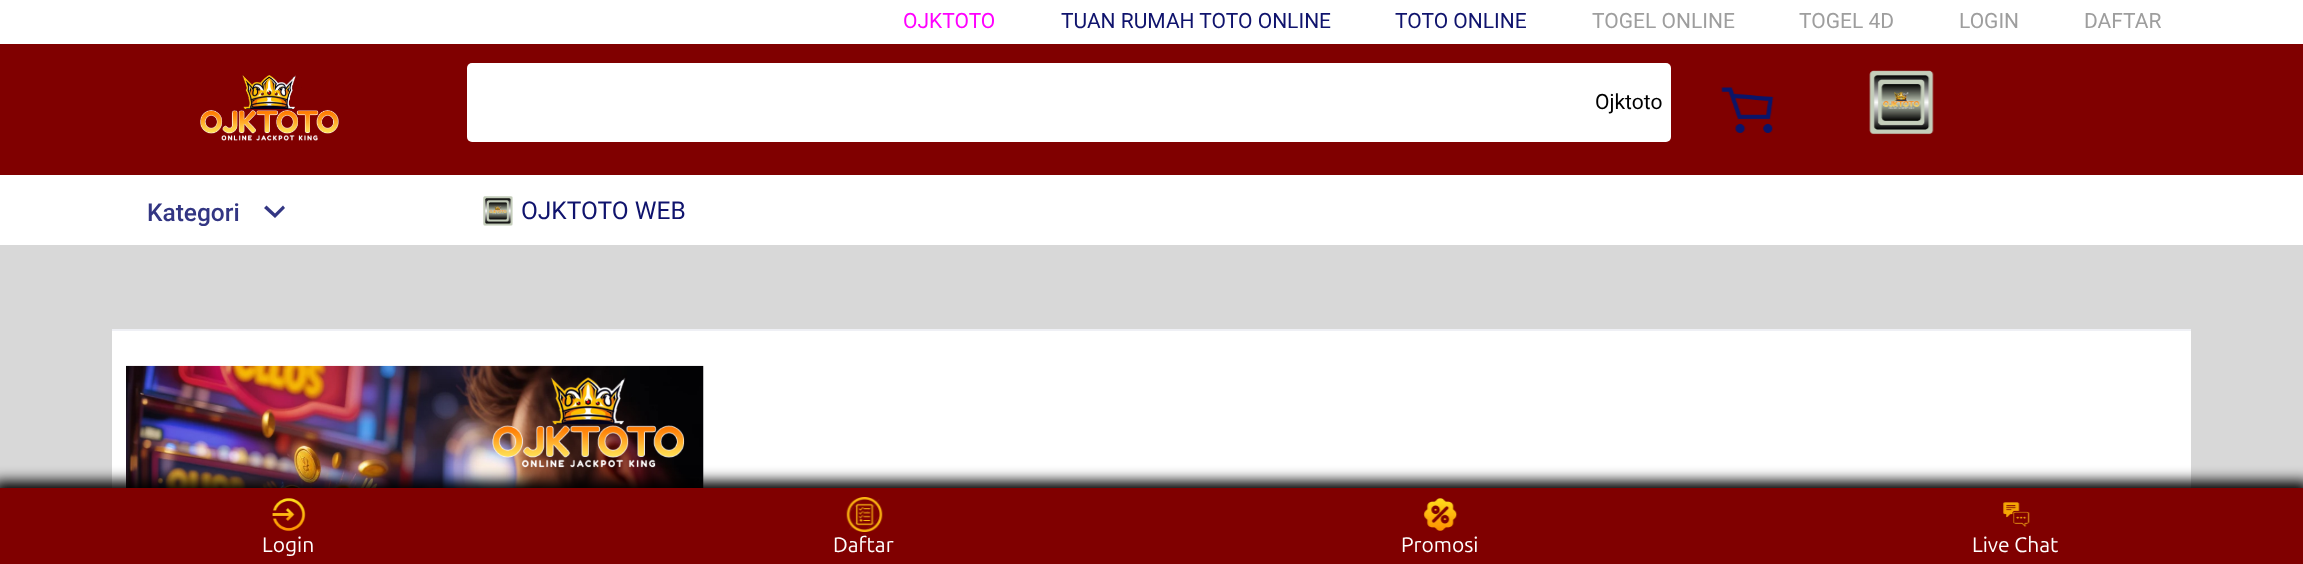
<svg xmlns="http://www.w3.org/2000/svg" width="2303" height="564">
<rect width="100%" height="100%" fill="#d8d8d8"/>
<rect width="2303" height="245" fill="#fff"/>
<text x="903" y="28" style="font-family:Roboto;font-size:21px;fill:#f0f">OJKTOTO</text>
<text x="1061" y="28" style="font-family:Roboto;font-size:21px;fill:#0f136d">TUAN RUMAH TOTO ONLINE</text>
<text x="1395" y="28" style="font-family:Roboto;font-size:21px;fill:#0f136d">TOTO ONLINE</text>
<text x="1592" y="28" style="font-family:Roboto;font-size:21px;fill:#9e9e9e">TOGEL ONLINE</text>
<text x="1799" y="28" style="font-family:Roboto;font-size:21px;fill:#9e9e9e">TOGEL 4D</text>
<text x="1959" y="28" style="font-family:Roboto;font-size:21px;fill:#9e9e9e">LOGIN</text>
<text x="2084" y="28" style="font-family:Roboto;font-size:21px;fill:#9e9e9e">DAFTAR</text>
<rect y="44" width="2303" height="131" fill="#800000"/>
<image x="200" y="75" width="139" height="66" href="media/1.png"/>
<rect x="467" y="63" width="1204" height="79" rx="5" fill="#fff"/>
<text x="1595" y="109" style="font-family:Roboto;font-size:21px;fill:#000">Ojktoto</text>
<image x="1721" y="87" width="53" height="46" href="media/2.png"/>
<image x="1869" y="70" width="65" height="65" href="media/3.png"/>
<text x="147" y="221" style="font-family:Roboto;font-size:24.5px;font-weight:500;fill:#333683">Kategori</text>
<path d="M283 205.5l2 2.5l-10 10l-11-10l2.5-2.5l8.5 8z" fill="#333683"/>
<image x="483" y="196" width="30" height="30" href="media/4.png"/>
<text x="521" y="219" style="font-family:Roboto;font-size:24.5px;fill:#0f136d">OJKTOTO WEB</text>
<rect x="112" y="329" width="2079" height="2" fill="#eff0f5"/>
<rect x="112" y="331" width="2079" height="157" fill="#fff"/>
<image x="126" y="365" width="578" height="123" href="media/5.png"/>
<rect x="-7" y="481" width="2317" height="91" fill="#000" filter="blur(7px)"/>
<rect y="488" width="2303" height="76" fill="#800000"/>
<image x="272" y="498" width="34" height="34" href="media/6.png"/>
<text x="262" y="552" style="font-family:Ubuntu;font-size:21px;fill:#fff">Login</text>
<image x="846" y="497" width="37" height="35" href="media/7.png"/>
<text x="833" y="552" style="font-family:Ubuntu;font-size:21px;fill:#fff">Daftar</text>
<image x="1423" y="498" width="35" height="33" href="media/8.png"/>
<text x="1401" y="552" style="font-family:Ubuntu;font-size:21px;fill:#fff">Promosi</text>
<image x="2003" y="502" width="27" height="25" href="media/9.png"/>
<text x="1972" y="552" style="font-family:Ubuntu;font-size:21px;fill:#fff">Live Chat</text>
</svg>
